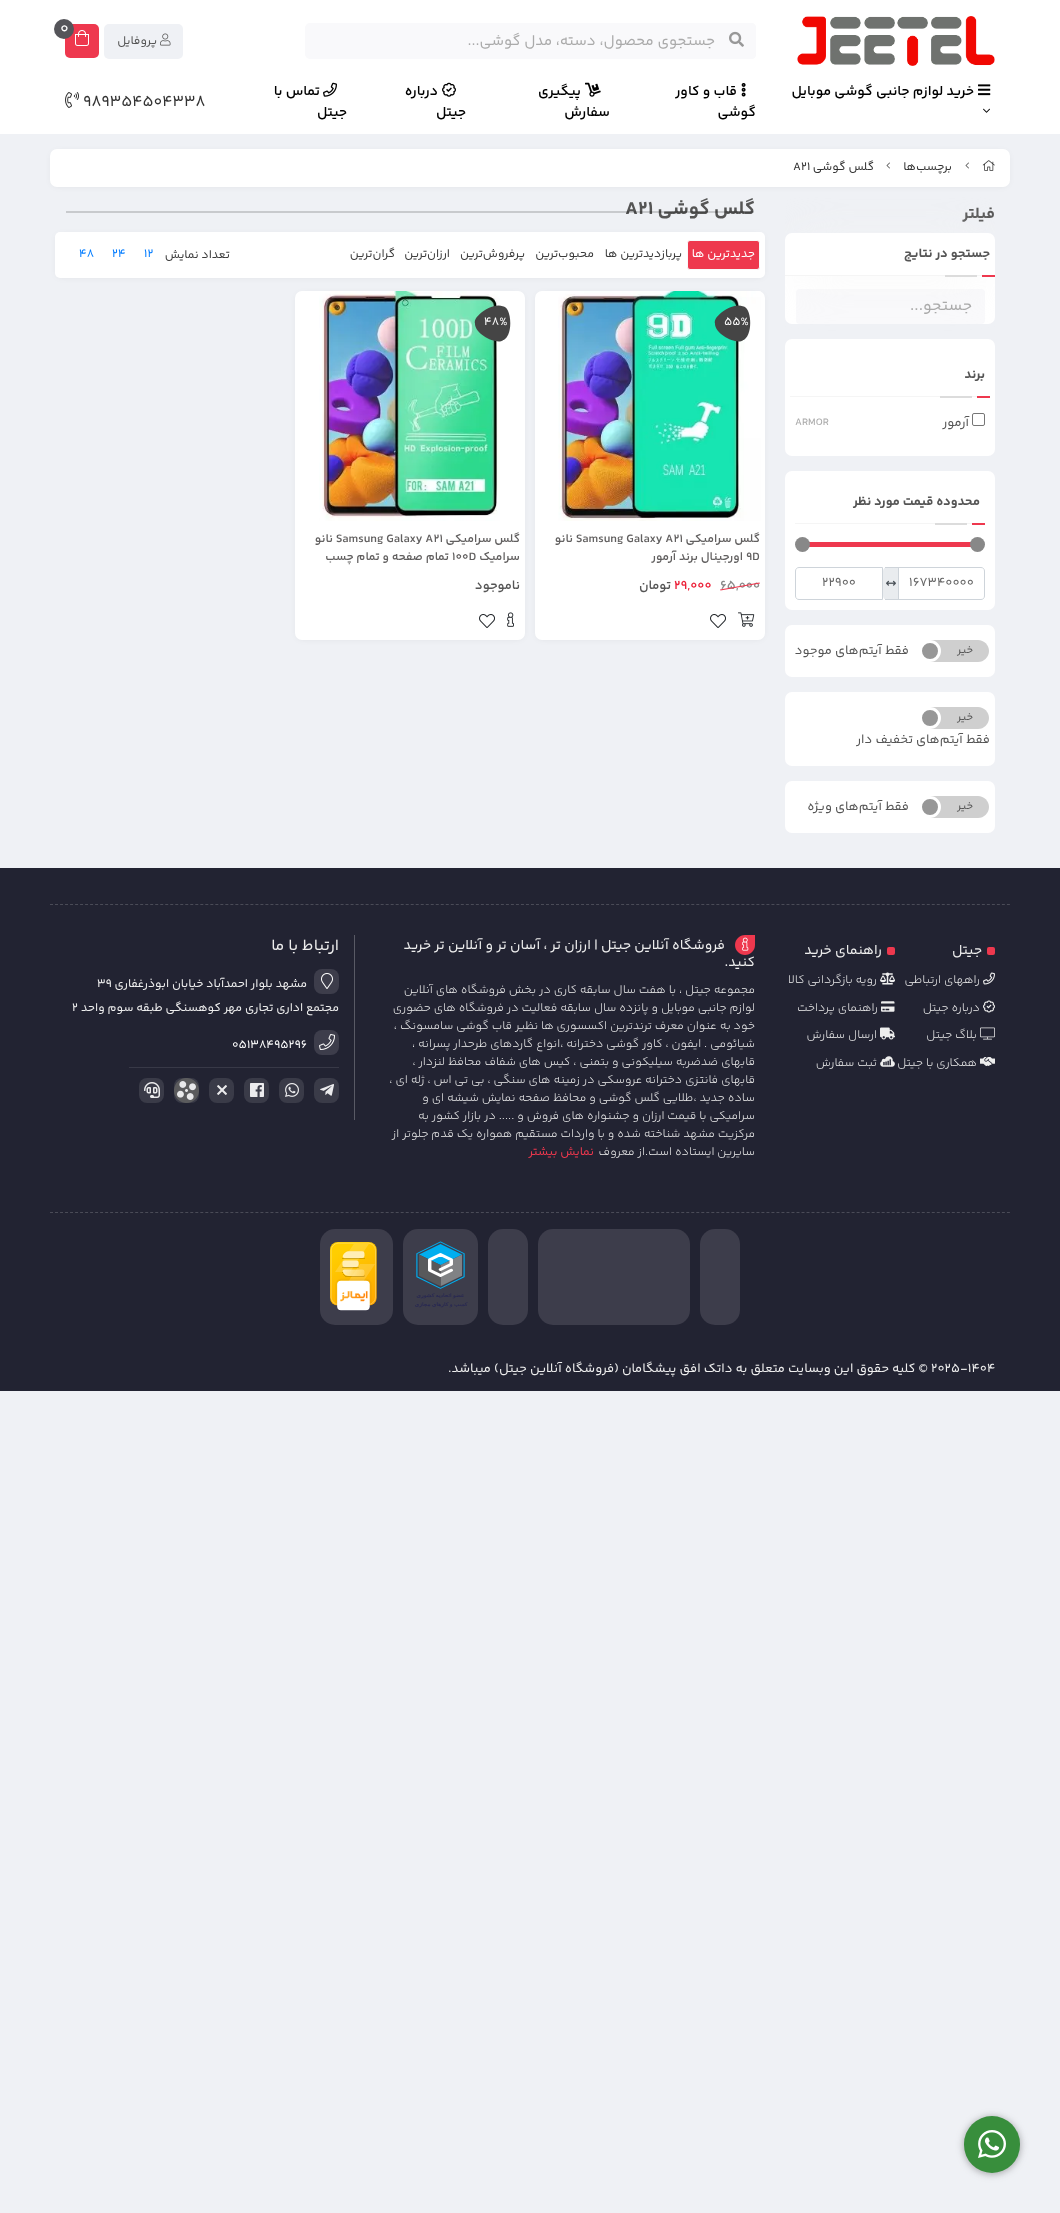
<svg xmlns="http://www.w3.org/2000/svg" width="1060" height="2213">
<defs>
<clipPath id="clip1"><rect x="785" y="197" width="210" height="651"/></clipPath>
<clipPath id="clip2"><path d="M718 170h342v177h-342zm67 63h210v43h-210z" clip-rule="evenodd"/></clipPath>
</defs>
<rect width="100%" height="100%" fill="#eff1f5"/>
<rect width="1060" height="134" fill="#fff"/>
<image x="797" y="16" width="198" height="50" href="media/1.png"/>
<rect x="305" y="23" width="432" height="36" rx="5" fill="#f9f9fb"/>
<path d="M717 23h35c2 0 4 2 4 4v28c0 2-2 4-4 4h-35z" fill="#f9f9fb"/>
<image x="729" y="31" width="15" height="16" href="media/2.png"/>
<text x="715" y="45" style="font-family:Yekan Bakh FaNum;font-size:15px;direction:rtl;fill:#aaa">جستجوی محصول، دسته، مدل گوشی...</text>
<rect x="65" y="24" width="34" height="34" rx="5" fill="#ee384e"/>
<circle cx="64" cy="29" r="10" fill="#55555a"/>
<text x="60" y="33" style="font-family:Yekan Bakh FaNum;font-size:16px;fill:#fff">0</text>
<image x="75" y="30" width="14" height="16" href="media/3.png"/>
<rect x="104" y="24" width="79" height="35" rx="5" fill="#eff1f5"/>
<image x="160" y="33" width="11" height="13" href="media/4.png"/>
<text x="157" y="44" style="font-family:Yekan Bakh FaNum;font-size:12px;direction:rtl;fill:#555">پروفایل</text>
<image x="978" y="84" width="13" height="12" href="media/5.png"/>
<text x="974" y="95" style="font-family:Yekan Bakh FaNum;font-size:14px;font-weight:600;direction:rtl;fill:#000">خرید لوازم جانبی گوشی موبایل</text>
<image x="983" y="108" width="7" height="5" href="media/6.png"/>
<image x="741" y="83" width="5" height="14" href="media/7.png"/>
<text x="737" y="95" style="font-family:Yekan Bakh FaNum;font-size:14px;font-weight:600;direction:rtl;fill:#000">قاب و کاور</text>
<text x="756" y="116" style="font-family:Yekan Bakh FaNum;font-size:14px;font-weight:600;direction:rtl;fill:#000">گوشی</text>
<image x="585" y="82" width="16" height="15" href="media/8.png"/>
<text x="581" y="95" style="font-family:Yekan Bakh FaNum;font-size:14px;font-weight:600;direction:rtl;fill:#000">پیگیری</text>
<text x="610" y="116" style="font-family:Yekan Bakh FaNum;font-size:14px;font-weight:600;direction:rtl;fill:#000">سفارش</text>
<image x="442" y="82" width="14" height="15" href="media/9.png"/>
<text x="438" y="95" style="font-family:Yekan Bakh FaNum;font-size:14px;font-weight:600;direction:rtl;fill:#000">درباره</text>
<text x="466" y="116" style="font-family:Yekan Bakh FaNum;font-size:14px;font-weight:600;direction:rtl;fill:#000">جیتل</text>
<image x="323" y="82" width="14" height="15" href="media/10.png"/>
<text x="320" y="95" style="font-family:Yekan Bakh FaNum;font-size:14px;font-weight:600;direction:rtl;fill:#000">تماس با</text>
<text x="347" y="116" style="font-family:Yekan Bakh FaNum;font-size:14px;font-weight:600;direction:rtl;fill:#000">جیتل</text>
<text x="83" y="106" style="font-family:Yekan Bakh FaNum;font-size:16px;fill:#333">989354504338</text>
<image x="65" y="92" width="14" height="16" href="media/11.png"/>
<rect x="53" y="153" width="954" height="32" rx="4" fill="#0000001a" filter="blur(3.5px)"/>
<rect x="50" y="149" width="960" height="38" rx="7" fill="#fff"/>
<image x="982" y="160" width="13" height="11" href="media/12.png"/>
<image x="965" y="162" width="4" height="7" href="media/13.png"/>
<text x="952" y="170" style="font-family:Yekan Bakh FaNum;font-size:12px;direction:rtl;fill:#333">برچسب‌ها</text>
<image x="886" y="162" width="4" height="7" href="media/13.png"/>
<text x="874" y="170" style="font-family:Yekan Bakh FaNum;font-size:12px;direction:rtl;fill:#333">گلس گوشی</text>
<text x="793" y="170" style="font-family:Yekan Bakh FaNum;font-size:12px;fill:#333">A21</text>
<text x="995" y="218" style="font-family:Yekan Bakh FaNum;font-size:16px;font-weight:bold;direction:rtl;fill:#555">فیلتر</text>
<rect x="785" y="233" width="210" height="91" rx="7" fill="#fff"/>
<rect x="796" y="289" width="189" height="35" rx="4" fill="#f9f9fb"/>
<rect x="785" y="339" width="210" height="117" rx="7" fill="#fff"/>
<g clip-path="url(#clip1)">
<g clip-path="url(#clip2)">
<rect x="794" y="246" width="192" height="25" fill="#f5f5f5" filter="blur(25px)"/>
</g>
</g>
<rect x="785" y="275" width="197" height="1" fill="#f5f5f5"/>
<text x="990" y="257" style="font-family:Yekan Bakh FaNum;font-size:13px;font-weight:bold;direction:rtl;fill:#555">جستجو در نتایج</text>
<rect x="982" y="275" width="13" height="2" fill="#ee384e"/>
<rect x="945" y="275" width="32" height="2" fill="#dcdcdc"/>
<text x="972" y="310" style="font-family:Yekan Bakh FaNum;font-size:16px;direction:rtl;fill:#aaa">جستجو...</text>
<rect x="790" y="396" width="187" height="1" fill="#f5f5f5"/>
<text x="985" y="378" style="font-family:Yekan Bakh FaNum;font-size:13px;font-weight:bold;direction:rtl;fill:#555">برند</text>
<rect x="977" y="396" width="13" height="2" fill="#ee384e"/>
<rect x="940" y="396" width="32" height="2" fill="#dcdcdc"/>
<rect x="972.5" y="413.5" width="12" height="12" rx="1.5" fill="none" stroke="#767676"/>
<text x="969" y="426" style="font-family:Yekan Bakh FaNum;font-size:13px;direction:rtl;fill:#555">آرمور</text>
<text x="795" y="425" style="font-family:Yekan Bakh FaNum;font-size:10.5px;fill:#aaa">ARMOR</text>
<rect x="785" y="471" width="210" height="139" rx="7" fill="#fff"/>
<rect x="795" y="523" width="177" height="1" fill="#f5f5f5"/>
<text x="980" y="505" style="font-family:Yekan Bakh FaNum;font-size:13px;font-weight:bold;direction:rtl;fill:#555">محدوده قیمت مورد نظر</text>
<rect x="972" y="523" width="13" height="2" fill="#ee384e"/>
<rect x="935" y="523" width="32" height="2" fill="#dcdcdc"/>
<rect x="805" y="542" width="166" height="5" fill="#ee384e"/>
<circle cx="977.5" cy="544.5" r="7.5" fill="#888"/>
<circle cx="802.5" cy="544.5" r="7.5" fill="#888"/>
<path d="M887 567h12v33h-12c-2 0-4-2-4-4v-25c0-2 2-4 4-4z" fill="#e9ecef"/>
<rect x="885" y="567" width="14" height="1" fill="#ced4da"/>
<rect x="885" y="599" width="14" height="1" fill="#ced4da"/>
<path d="M898.5 567.5h82.5c2 0 3.5 1.5 3.5 3.5v25c0 2-1.5 3.5-3.5 3.5h-82.5z" fill="none" stroke="#ced4da"/>
<text x="909" y="586" style="font-family:Yekan Bakh FaNum;font-size:13px;fill:#666">167340000</text>
<image x="886" y="580" width="10" height="6" href="media/14.png"/>
<path d="M799 567.5h83.5v32h-83.5c-2 0-3.5-1.5-3.5-3.5v-25c0-2 1.5-3.5 3.5-3.5z" fill="none" stroke="#ced4da"/>
<text x="822" y="586" style="font-family:Yekan Bakh FaNum;font-size:13px;fill:#666">22900</text>
<rect x="785" y="625" width="210" height="52" rx="7" fill="#fff"/>
<path d="M930 640h48c6 0 11 5 11 11c0 6-5 11-11 11h-48z" fill="#cfcfcf"/>
<text x="973" y="653" style="font-family:Yekan Bakh FaNum;font-size:11px;direction:rtl;fill:#555">خیر</text>
<circle cx="930" cy="651" r="9.5" fill="#979797" stroke="#fff" stroke-width="3"/>
<text x="909" y="654" style="font-family:Yekan Bakh FaNum;font-size:13px;direction:rtl;fill:#555">فقط آیتم‌های موجود</text>
<rect x="785" y="692" width="210" height="74" rx="7" fill="#fff"/>
<path d="M930 707h48c6 0 11 5 11 11c0 6-5 11-11 11h-48z" fill="#cfcfcf"/>
<text x="973" y="720" style="font-family:Yekan Bakh FaNum;font-size:11px;direction:rtl;fill:#555">خیر</text>
<circle cx="930" cy="718" r="9.5" fill="#979797" stroke="#fff" stroke-width="3"/>
<text x="990" y="743" style="font-family:Yekan Bakh FaNum;font-size:13px;direction:rtl;fill:#555">فقط آیتم‌های تخفیف دار</text>
<rect x="785" y="781" width="210" height="52" rx="7" fill="#fff"/>
<path d="M930 796h48c6 0 11 5 11 11c0 6-5 11-11 11h-48z" fill="#cfcfcf"/>
<text x="973" y="809" style="font-family:Yekan Bakh FaNum;font-size:11px;direction:rtl;fill:#555">خیر</text>
<circle cx="930" cy="807" r="9.5" fill="#979797" stroke="#fff" stroke-width="3"/>
<text x="909" y="810" style="font-family:Yekan Bakh FaNum;font-size:13px;direction:rtl;fill:#555">فقط آیتم‌های ویژه</text>
<text x="755" y="214" style="font-family:Yekan Bakh FaNum;font-size:19.25px;font-weight:bold;direction:rtl;fill:#555">گلس گوشی</text>
<text x="625" y="214" style="font-family:Yekan Bakh FaNum;font-size:19.25px;font-weight:bold;fill:#555">A21</text>
<rect x="66" y="211" width="688" height="2" fill="#00000029"/>
<rect x="58" y="236" width="704" height="40" rx="2" fill="#0000001a" filter="blur(3.5px)"/>
<rect x="55" y="232" width="710" height="46" rx="5" fill="#fff"/>
<rect x="687.5" y="240.5" width="72" height="29" rx="2.5" fill="#ee384e" stroke="#f8f9fa"/>
<text x="755" y="257" style="font-family:Yekan Bakh FaNum;font-size:12px;direction:rtl;fill:#fff">جدیدترین ها</text>
<text x="682" y="257" style="font-family:Yekan Bakh FaNum;font-size:12px;direction:rtl;fill:#3b3b3b">پربازدیدترین ها</text>
<text x="594" y="257" style="font-family:Yekan Bakh FaNum;font-size:12px;direction:rtl;fill:#3b3b3b">محبوب‌‌ترین</text>
<text x="525" y="257" style="font-family:Yekan Bakh FaNum;font-size:12px;direction:rtl;fill:#3b3b3b">پرفروش‌ترین</text>
<text x="450" y="257" style="font-family:Yekan Bakh FaNum;font-size:12px;direction:rtl;fill:#3b3b3b">ارزان‌ترین</text>
<text x="395" y="257" style="font-family:Yekan Bakh FaNum;font-size:12px;direction:rtl;fill:#3b3b3b">گران‌ترین</text>
<text x="230" y="258" style="font-family:Yekan Bakh FaNum;font-size:12px;direction:rtl;fill:#3b3b3b">تعداد نمایش</text>
<text x="144" y="257" style="font-family:Yekan Bakh FaNum;font-size:12px;fill:#007bff">12</text>
<text x="112" y="257" style="font-family:Yekan Bakh FaNum;font-size:12px;fill:#007bff">24</text>
<text x="79" y="257" style="font-family:Yekan Bakh FaNum;font-size:12px;fill:#007bff">48</text>
<rect x="538" y="295" width="224" height="343" rx="4" fill="#0000001a" filter="blur(3.5px)"/>
<rect x="535" y="291" width="230" height="349" rx="7" fill="#fff"/>
<image x="558" y="291" width="203" height="230" href="media/15.png"/>
<path d="M733.5 317.5c2-3 4-8 7-10c10-6.5 14 25 4 32c-4.5 2.5-7-2.5-8.5-5.5l-3-5c-1.5-3.5-1.5-8.5 .5-11.5z" fill="#454545"/>
<path d="M729.5 327c-3.5 0-9 .5-12-1c-11-5.5 14.5-25 25.5-19.5c4.5 2.5 1.5 7-.5 10l-3 5c-2 3-6 5.5-10 5.5z" fill="#454545"/>
<path d="M739.5 325.5c1.5 3 5 7.5 5 11c.5 12-29 0-29.5-12.5c-.5-5 5.5-5 9-4.5h6c3.5 .5 7.5 2.5 9.5 6z" fill="#454545"/>
<text x="724" y="325" style="font-family:Yekan Bakh FaNum;font-size:12px;fill:#fff">55%</text>
<text x="760" y="542" style="font-family:Yekan Bakh FaNum;font-size:12px;font-weight:600;direction:rtl;fill:#626060">گلس سرامیکی</text>
<text x="576" y="542" style="font-family:Yekan Bakh FaNum;font-size:12px;font-weight:600;fill:#626060">Samsung Galaxy A21</text>
<text x="573" y="542" style="font-family:Yekan Bakh FaNum;font-size:12px;font-weight:600;direction:rtl;fill:#626060">نانو</text>
<text x="746" y="560" style="font-family:Yekan Bakh FaNum;font-size:12px;font-weight:600;fill:#626060">9D</text>
<text x="743" y="560" style="font-family:Yekan Bakh FaNum;font-size:12px;font-weight:600;direction:rtl;fill:#626060">اورجینال برند آرمور</text>
<text x="720" y="589" style="font-family:Yekan Bakh FaNum;font-size:13px;font-weight:600;fill:#8a8a8a">65,000</text>
<path d="M720 589.5l39.5-7l.5 1l-39.5 7z" fill="#ee384e"/>
<text x="674" y="589" style="font-family:Yekan Bakh FaNum;font-size:13px;font-weight:600;fill:#ec2139">29,000</text>
<text x="671" y="589" style="font-family:Yekan Bakh FaNum;font-size:13px;font-weight:600;direction:rtl;fill:#555">تومان</text>
<image x="738" y="612" width="17" height="15" href="media/16.png"/>
<image x="710" y="614" width="16" height="14" href="media/17.png"/>
<rect x="298" y="295" width="224" height="343" rx="4" fill="#0000001a" filter="blur(3.5px)"/>
<rect x="295" y="291" width="230" height="349" rx="7" fill="#fff"/>
<image x="319" y="291" width="181" height="230" href="media/18.png"/>
<path d="M493.5 317.5c2-3 4-8 7-10c10-6.5 14 25 4 32c-4.5 2.5-7-2.5-8.5-5.5l-3-5c-1.5-3.5-1.5-8.5 .5-11.5z" fill="#454545"/>
<path d="M489.5 327c-3.5 0-9 .5-12-1c-11-5.5 14.5-25 25.5-19.5c4.5 2.5 1.5 7-.5 10l-3 5c-2 3-6 5.5-10 5.5z" fill="#454545"/>
<path d="M499.5 325.5c1.5 3 5 7.5 5 11c.5 12-29 0-29.5-12.5c-.5-5 5.5-5 9-4.5h6c3.5 .5 7.5 2.5 9.5 6z" fill="#454545"/>
<text x="484" y="325" style="font-family:Yekan Bakh FaNum;font-size:12px;fill:#fff">48%</text>
<text x="520" y="542" style="font-family:Yekan Bakh FaNum;font-size:12px;font-weight:600;direction:rtl;fill:#626060">گلس سرامیکی</text>
<text x="336" y="542" style="font-family:Yekan Bakh FaNum;font-size:12px;font-weight:600;fill:#626060">Samsung Galaxy A21</text>
<text x="333" y="542" style="font-family:Yekan Bakh FaNum;font-size:12px;font-weight:600;direction:rtl;fill:#626060">نانو</text>
<text x="520" y="560" style="font-family:Yekan Bakh FaNum;font-size:12px;font-weight:600;direction:rtl;fill:#626060">سرامیک</text>
<text x="452" y="560" style="font-family:Yekan Bakh FaNum;font-size:12px;font-weight:600;fill:#626060">100D</text>
<text x="449" y="560" style="font-family:Yekan Bakh FaNum;font-size:12px;font-weight:600;direction:rtl;fill:#626060">تمام صفحه و تمام چسب</text>
<text x="520" y="589" style="font-family:Yekan Bakh FaNum;font-size:13px;font-weight:600;direction:rtl;fill:#555">ناموجود</text>
<image x="507" y="612" width="7" height="15" href="media/19.png"/>
<image x="479" y="614" width="16" height="14" href="media/17.png"/>
<rect y="868" width="1060" height="523" fill="#222332"/>
<path d="M50 904.5h960" fill="none" stroke="#4a4b57" stroke-dasharray="3 2.01"/>
<rect x="987" y="947" width="8" height="8" rx="2" fill="#ee384e"/>
<text x="982" y="954" style="font-family:Yekan Bakh FaNum;font-size:14px;direction:rtl;fill:#eee">جیتل</text>
<image x="983" y="972" width="12" height="13" href="media/20.png"/>
<text x="980" y="983" style="font-family:Yekan Bakh FaNum;font-size:12px;font-weight:300;direction:rtl;fill:#eee">راههای ارتباطی</text>
<image x="983" y="1000" width="12" height="13" href="media/21.png"/>
<text x="980" y="1011" style="font-family:Yekan Bakh FaNum;font-size:12px;font-weight:300;direction:rtl;fill:#eee">درباره جیتل</text>
<image x="980" y="1027" width="15" height="13" href="media/22.png"/>
<text x="977" y="1038" style="font-family:Yekan Bakh FaNum;font-size:12px;font-weight:300;direction:rtl;fill:#eee">بلاگ جیتل</text>
<image x="980" y="1057" width="15" height="9" href="media/23.png"/>
<text x="977" y="1066" style="font-family:Yekan Bakh FaNum;font-size:12px;font-weight:300;direction:rtl;fill:#eee">همکاری با جیتل</text>
<rect x="887" y="947" width="8" height="8" rx="2" fill="#ee384e"/>
<text x="882" y="954" style="font-family:Yekan Bakh FaNum;font-size:14px;direction:rtl;fill:#eee">راهنمای خرید</text>
<image x="880" y="972" width="15" height="13" href="media/24.png"/>
<text x="877" y="983" style="font-family:Yekan Bakh FaNum;font-size:12px;font-weight:300;direction:rtl;fill:#eee">رویه بازگردانی کالا</text>
<image x="881" y="1001" width="14" height="11" href="media/25.png"/>
<text x="878" y="1011" style="font-family:Yekan Bakh FaNum;font-size:12px;font-weight:300;direction:rtl;fill:#eee">راهنمای پرداخت</text>
<image x="880" y="1027" width="15" height="13" href="media/26.png"/>
<text x="877" y="1038" style="font-family:Yekan Bakh FaNum;font-size:12px;font-weight:300;direction:rtl;fill:#eee">ارسال سفارش</text>
<image x="880" y="1056" width="15" height="11" href="media/27.png"/>
<text x="877" y="1066" style="font-family:Yekan Bakh FaNum;font-size:12px;font-weight:300;direction:rtl;fill:#eee">ثبت سفارش</text>
<path d="M745 935h10v10c0 5.5-4.5 10-10 10c-5.5 0-10-4.5-10-10c0-5.5 4.5-10 10-10z" fill="#ee384e"/>
<image x="742" y="937" width="7" height="14" href="media/28.png"/>
<text x="725" y="949" style="font-family:Yekan Bakh FaNum;font-size:14px;direction:rtl;fill:#eee">فروشگاه آنلاین جیتل | ارزان تر ، آسان تر و آنلاین تر خرید</text>
<text x="755" y="966" style="font-family:Yekan Bakh FaNum;font-size:14px;direction:rtl;fill:#eee">کنید.</text>
<text x="755" y="993" style="font-family:Yekan Bakh FaNum;font-size:12px;font-weight:300;direction:rtl;fill:#eee">مجموعه جیتل ، با هفت سال سابقه کاری در بخش فروشگاه های آنلاین</text>
<text x="755" y="1011" style="font-family:Yekan Bakh FaNum;font-size:12px;font-weight:300;direction:rtl;fill:#eee">لوازم جانبی موبایل و پانزده سال سابقه فعالیت در فروشگاه های حضوری</text>
<text x="755" y="1029" style="font-family:Yekan Bakh FaNum;font-size:12px;font-weight:300;direction:rtl;fill:#eee">خود به عنوان معرف ترندترین اکسسوری ها نظیر قاب گوشی سامسونگ ،</text>
<text x="755" y="1047" style="font-family:Yekan Bakh FaNum;font-size:12px;font-weight:300;direction:rtl;fill:#eee">شیائومی . ایفون ، کاور گوشی دخترانه ،انواع گاردهای طرحدار پسرانه ،</text>
<text x="755" y="1065" style="font-family:Yekan Bakh FaNum;font-size:12px;font-weight:300;direction:rtl;fill:#eee">قابهای ضدضربه سیلیکونی و بتمنی ، کیس های شفاف محافظ لنزدار ،</text>
<text x="755" y="1083" style="font-family:Yekan Bakh FaNum;font-size:12px;font-weight:300;direction:rtl;fill:#eee">قابهای فانتزی دخترانه عروسکی در زمینه های سنگی ، بی تی اس ، ژله ای ،</text>
<text x="755" y="1101" style="font-family:Yekan Bakh FaNum;font-size:12px;font-weight:300;direction:rtl;fill:#eee">ساده جدید ،طلایی گلس گوشی و محافظ صفحه نمایش شیشه ای و</text>
<text x="755" y="1119" style="font-family:Yekan Bakh FaNum;font-size:12px;font-weight:300;direction:rtl;fill:#eee">سرامیکی با قیمت ارزان و جشنواره های فروش و ..... در بازار کشور به</text>
<text x="755" y="1137" style="font-family:Yekan Bakh FaNum;font-size:12px;font-weight:300;direction:rtl;fill:#eee">مرکزیت مشهد شناخته شده و با واردات مستقیم همواره یک قدم جلوتر از</text>
<text x="755" y="1155" style="font-family:Yekan Bakh FaNum;font-size:12px;font-weight:300;direction:rtl;fill:#eee">سایرین ایستاده است.از معروف</text>
<text x="594" y="1155" style="font-family:Yekan Bakh FaNum;font-size:12px;direction:rtl;fill:#ee384e">نمایش بیشتر</text>
<rect x="354" y="935" width="1" height="185" fill="#595a65"/>
<text x="339" y="950" style="font-family:Yekan Bakh FaNum;font-size:16px;direction:rtl;fill:#eee">ارتباط با ما</text>
<rect x="314" y="969" width="25" height="25" rx="8" fill="#3d3d4b"/>
<image x="321" y="973" width="12" height="16" href="media/29.png"/>
<text x="307" y="987" style="font-family:Yekan Bakh FaNum;font-size:12px;direction:rtl;fill:#eee">مشهد بلوار احمدآباد خیابان ابوذرغفاری</text>
<text x="97" y="987" style="font-family:Yekan Bakh FaNum;font-size:12px;fill:#eee">39</text>
<text x="339" y="1011" style="font-family:Yekan Bakh FaNum;font-size:12px;direction:rtl;fill:#eee">مجتمع اداری تجاری مهر کوهسنگی طبقه سوم واحد</text>
<text x="72" y="1011" style="font-family:Yekan Bakh FaNum;font-size:12px;fill:#eee">2</text>
<rect x="314" y="1030" width="25" height="25" rx="8" fill="#3d3d4b"/>
<image x="319" y="1034" width="16" height="16" href="media/30.png"/>
<text x="232" y="1048" style="font-family:Yekan Bakh FaNum;font-size:12px;fill:#fff">05138495296</text>
<rect x="129" y="1067" width="210" height="1" fill="#383947"/>
<rect x="314" y="1078" width="25" height="25" rx="8" fill="#3a3b48"/>
<image x="320" y="1084" width="14" height="12" href="media/31.png"/>
<rect x="279" y="1078" width="25" height="25" rx="8" fill="#3a3b48"/>
<image x="285" y="1083" width="14" height="14" href="media/32.png"/>
<rect x="244" y="1078" width="25" height="25" rx="8" fill="#3a3b48"/>
<image x="250" y="1083" width="14" height="14" href="media/33.png"/>
<rect x="209" y="1078" width="25" height="25" rx="8" fill="#3a3b48"/>
<image x="217" y="1085" width="10" height="10" href="media/34.png"/>
<rect x="174" y="1078" width="25" height="25" rx="8" fill="#3a3b48"/>
<image x="174" y="1078" width="25" height="25" href="media/35.png"/>
<rect x="139" y="1078" width="25" height="25" rx="8" fill="#3a3b48"/>
<image x="144" y="1082" width="16" height="16" href="media/36.png"/>
<path d="M50 1212.5h960" fill="none" stroke="#4a4b57" stroke-dasharray="3 2.01"/>
<rect x="700" y="1229" width="40" height="96" rx="15" fill="#3d3d4b"/>
<rect x="538" y="1229" width="152" height="96" rx="15" fill="#3d3d4b"/>
<rect x="488" y="1229" width="40" height="96" rx="15" fill="#3d3d4b"/>
<rect x="403" y="1229" width="75" height="96" rx="15" fill="#3d3d4b"/>
<image x="415" y="1241" width="53" height="67" href="media/37.png"/>
<rect x="320" y="1229" width="73" height="96" rx="15" fill="#3d3d4b"/>
<image x="330" y="1242" width="47" height="69" href="media/38.png"/>
<text x="931" y="1372" style="font-family:Yekan Bakh FaNum;font-size:13px;fill:#eee">2025-1404</text>
<text x="928" y="1372" style="font-family:Yekan Bakh FaNum;font-size:13px;direction:rtl;fill:#eee">© کلیه حقوق این وبسایت متعلق به داتک افق پیشگامان (فروشگاه آنلاین جیتل) میباشد.</text>
<rect x="964" y="2117" width="56" height="57" rx="28" fill="#00000026" filter="blur(5px)"/>
<rect x="964" y="2117" width="56" height="57" rx="28" fill="#00000033" filter="blur(3px)"/>
<rect x="964" y="2116" width="56" height="57" rx="28" fill="#388e3c"/>
<image x="978" y="2130" width="28" height="28" href="media/39.png"/>
</svg>
